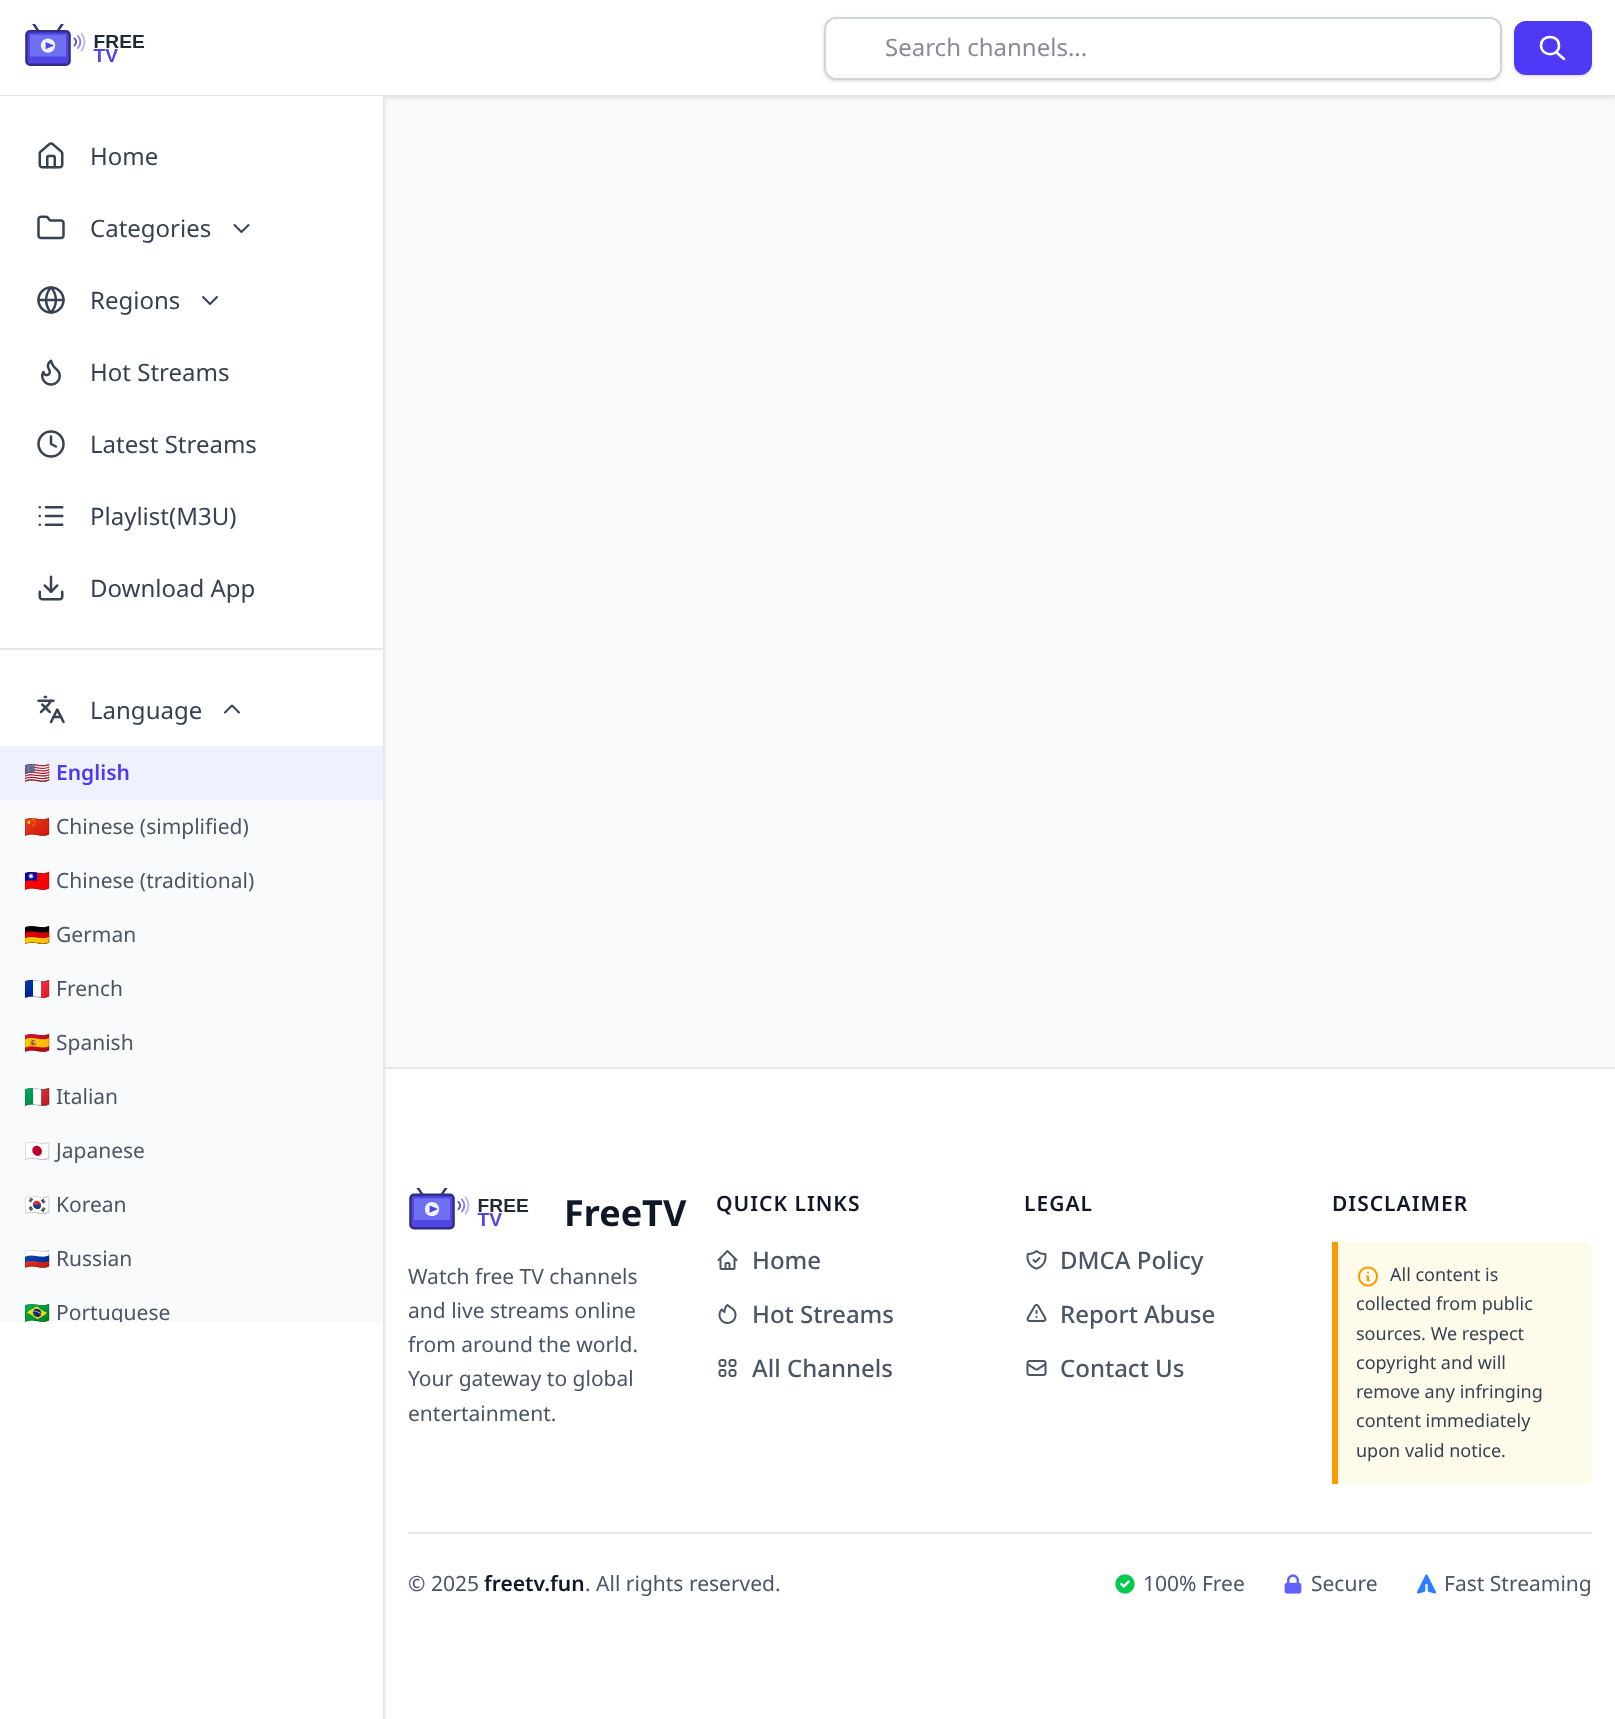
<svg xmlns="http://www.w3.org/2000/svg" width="1615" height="1719">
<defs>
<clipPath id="clip1"><rect y="746" width="383" height="576"/></clipPath>
</defs>
<rect width="100%" height="100%" fill="#f9fafb"/>
<rect y="2" width="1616" height="96" fill="#0000001a" filter="blur(2px)"/>
<rect width="1615" height="95" fill="#fff"/>
<rect y="95" width="1615" height="2" fill="#e5e7eb"/>
<image x="25" y="24" width="120" height="42" href="media/1.png"/>
<rect x="825" y="20" width="675" height="60" rx="11" fill="#0000001a" filter="blur(1.5px)"/>
<rect x="824" y="18" width="678" height="63" rx="12" fill="#0000001a" filter="blur(2px)"/>
<rect x="825" y="18" width="676" height="61" rx="11" fill="#fff" stroke="#d1d5dc" stroke-width="2"/>
<text x="885" y="56" style="font-family:Noto Sans;font-size:24px;fill:#888c94">Search channels...</text>
<rect x="1515" y="24" width="75" height="51" rx="11" fill="#0000001a" filter="blur(1.5px)"/>
<rect x="1514" y="23" width="78" height="54" rx="12" fill="#0000001a" filter="blur(2px)"/>
<rect x="1514" y="21" width="78" height="54" rx="12" fill="#4f39f6"/>
<path d="M1564 59l-8-7m3-6.5c0 11.5-17.5 11.5-18 0c0-11.5 18-11.5 18 0z" fill="none" stroke="#fff" stroke-width="2.5" stroke-linecap="round" stroke-linejoin="round"/>
<rect x="385" y="1069" width="1230" height="650" fill="#fff"/>
<rect x="384" y="1067" width="1231" height="2" fill="#e5e7eb"/>
<rect y="98" width="384" height="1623" fill="#0000001a" filter="blur(2px)"/>
<rect y="96" width="383" height="1623" fill="#fff"/>
<rect x="383" y="96" width="2" height="1623" fill="#e5e7eb"/>
<image x="38" y="142" width="26" height="27" href="media/2.png"/>
<text x="90" y="165" style="font-family:Noto Sans;font-size:24px;fill:#364153">Home</text>
<image x="37" y="215" width="28" height="25" href="media/3.png"/>
<text x="90" y="237" style="font-family:Noto Sans;font-size:24px;fill:#364153">Categories</text>
<path d="M248.5 225l-7 7l-7-7" fill="none" stroke="#364153" stroke-width="2" stroke-linecap="round" stroke-linejoin="round"/>
<circle cx="51" cy="300" r="12.5" fill="none" stroke="#364153" stroke-width="2.5"/>
<path d="M51 287.5c-6.5 7-6.5 18 0 25c6.5-7 6.5-18 0-25m-12.5 12.5h25" fill="none" stroke="#364153" stroke-width="2.5" stroke-linecap="round" stroke-linejoin="round"/>
<text x="90" y="309" style="font-family:Noto Sans;font-size:24px;fill:#364153">Regions</text>
<path d="M217 297l-7 7l-7-7" fill="none" stroke="#364153" stroke-width="2" stroke-linecap="round" stroke-linejoin="round"/>
<image x="41" y="359" width="20" height="27" href="media/4.png"/>
<text x="90" y="381" style="font-family:Noto Sans;font-size:24px;fill:#364153">Hot Streams</text>
<path d="M51 436.5v7.5l5 2.5" fill="none" stroke="#364153" stroke-width="2.5" stroke-linecap="round" stroke-linejoin="round"/>
<circle cx="51" cy="444" r="12.5" fill="none" stroke="#364153" stroke-width="2.5"/>
<text x="90" y="453" style="font-family:Noto Sans;font-size:24px;fill:#364153">Latest Streams</text>
<image x="38" y="506" width="26" height="20" href="media/5.png"/>
<text x="90" y="525" style="font-family:Noto Sans;font-size:24px;fill:#364153">Playlist(M3U)</text>
<image x="38" y="575" width="26" height="26" href="media/6.png"/>
<text x="90" y="597" style="font-family:Noto Sans;font-size:24px;fill:#364153">Download App</text>
<rect y="648" width="383" height="2" fill="#e5e7eb"/>
<image x="37" y="695" width="28" height="29" href="media/7.png"/>
<text x="90" y="719" style="font-family:Noto Sans;font-size:24px;fill:#364153">Language</text>
<path d="M225 712.5l7-7l7 7" fill="none" stroke="#364153" stroke-width="2" stroke-linecap="round" stroke-linejoin="round"/>
<rect y="800" width="383" height="522" fill="#f9fafb"/>
<rect y="746" width="383" height="54" fill="#eef2ff"/>
<text x="24" y="780" style="font-family:Noto Color Emoji;font-size:21px;fill:#4f39f6">🇺🇸</text>
<text x="56" y="780" style="font-family:Noto Sans;font-size:21px;font-weight:600;fill:#4f39f6">English</text>
<text x="24" y="834" style="font-family:Noto Color Emoji;font-size:21px;fill:#4a5565">🇨🇳</text>
<text x="56" y="834" style="font-family:Noto Sans;font-size:21px;fill:#4a5565">Chinese (simplified)</text>
<text x="24" y="888" style="font-family:Noto Color Emoji;font-size:21px;fill:#4a5565">🇹🇼</text>
<text x="56" y="888" style="font-family:Noto Sans;font-size:21px;fill:#4a5565">Chinese (traditional)</text>
<text x="24" y="942" style="font-family:Noto Color Emoji;font-size:21px;fill:#4a5565">🇩🇪</text>
<text x="56" y="942" style="font-family:Noto Sans;font-size:21px;fill:#4a5565">German</text>
<text x="24" y="996" style="font-family:Noto Color Emoji;font-size:21px;fill:#4a5565">🇫🇷</text>
<text x="56" y="996" style="font-family:Noto Sans;font-size:21px;fill:#4a5565">French</text>
<text x="24" y="1050" style="font-family:Noto Color Emoji;font-size:21px;fill:#4a5565">🇪🇸</text>
<text x="56" y="1050" style="font-family:Noto Sans;font-size:21px;fill:#4a5565">Spanish</text>
<text x="24" y="1104" style="font-family:Noto Color Emoji;font-size:21px;fill:#4a5565">🇮🇹</text>
<text x="56" y="1104" style="font-family:Noto Sans;font-size:21px;fill:#4a5565">Italian</text>
<text x="24" y="1158" style="font-family:Noto Color Emoji;font-size:21px;fill:#4a5565">🇯🇵</text>
<text x="56" y="1158" style="font-family:Noto Sans;font-size:21px;fill:#4a5565">Japanese</text>
<text x="24" y="1212" style="font-family:Noto Color Emoji;font-size:21px;fill:#4a5565">🇰🇷</text>
<text x="56" y="1212" style="font-family:Noto Sans;font-size:21px;fill:#4a5565">Korean</text>
<text x="24" y="1266" style="font-family:Noto Color Emoji;font-size:21px;fill:#4a5565">🇷🇺</text>
<text x="56" y="1266" style="font-family:Noto Sans;font-size:21px;fill:#4a5565">Russian</text>
<g clip-path="url(#clip1)">
<text x="24" y="1320" style="font-family:Noto Color Emoji;font-size:21px;fill:#4a5565">🇧🇷</text>
<text x="56" y="1320" style="font-family:Noto Sans;font-size:21px;fill:#4a5565">Portuguese</text>
</g>
<image x="409" y="1188" width="120" height="42" href="media/8.png"/>
<text x="564" y="1226" style="font-family:Noto Sans;font-size:36px;font-weight:bold;fill:#101828">FreeTV</text>
<text x="408" y="1284" style="font-family:Noto Sans;font-size:21px;fill:#4a5565">Watch free TV channels</text>
<text x="408" y="1318" style="font-family:Noto Sans;font-size:21px;fill:#4a5565">and live streams online</text>
<text x="408" y="1352" style="font-family:Noto Sans;font-size:21px;fill:#4a5565">from around the world.</text>
<text x="408" y="1386" style="font-family:Noto Sans;font-size:21px;fill:#4a5565">Your gateway to global</text>
<text x="408" y="1421" style="font-family:Noto Sans;font-size:21px;fill:#4a5565">entertainment.</text>
<text x="716" y="1211" style="font-family:Noto Sans;font-size:21px;font-weight:600;letter-spacing:1px;fill:#101828">QUICK LINKS</text>
<image x="717" y="1250" width="21" height="20" href="media/9.png"/>
<text x="752" y="1269" style="font-family:Noto Sans;font-size:24px;font-weight:500;fill:#4a5565">Home</text>
<image x="718" y="1304" width="19" height="20" href="media/10.png"/>
<text x="752" y="1323" style="font-family:Noto Sans;font-size:24px;font-weight:500;fill:#4a5565">Hot Streams</text>
<image x="718" y="1359" width="19" height="18" href="media/11.png"/>
<text x="752" y="1377" style="font-family:Noto Sans;font-size:24px;font-weight:500;fill:#4a5565">All Channels</text>
<text x="1024" y="1211" style="font-family:Noto Sans;font-size:21px;font-weight:600;letter-spacing:1px;fill:#101828">LEGAL</text>
<image x="1026" y="1250" width="21" height="20" href="media/12.png"/>
<text x="1060" y="1269" style="font-family:Noto Sans;font-size:24px;font-weight:500;fill:#4a5565">DMCA Policy</text>
<image x="1026" y="1304" width="21" height="18" href="media/13.png"/>
<text x="1060" y="1323" style="font-family:Noto Sans;font-size:24px;font-weight:500;fill:#4a5565">Report Abuse</text>
<image x="1026" y="1360" width="21" height="16" href="media/14.png"/>
<text x="1060" y="1377" style="font-family:Noto Sans;font-size:24px;font-weight:500;fill:#4a5565">Contact Us</text>
<text x="1332" y="1211" style="font-family:Noto Sans;font-size:21px;font-weight:600;letter-spacing:1px;fill:#101828">DISCLAIMER</text>
<path d="M1338 1242h248c3.5 0 6 2.5 6 6v230c0 3.5-2.5 6-6 6h-248z" fill="#fffbeb"/>
<rect x="1332" y="1242" width="6" height="242" fill="#fd9a00"/>
<image x="1358" y="1266" width="20" height="21" href="media/15.png"/>
<text x="1390" y="1281" style="font-family:Noto Sans;font-size:18px;fill:#364153">All content is</text>
<text x="1356" y="1310" style="font-family:Noto Sans;font-size:18px;fill:#364153">collected from public</text>
<text x="1356" y="1340" style="font-family:Noto Sans;font-size:18px;fill:#364153">sources. We respect</text>
<text x="1356" y="1369" style="font-family:Noto Sans;font-size:18px;fill:#364153">copyright and will</text>
<text x="1356" y="1398" style="font-family:Noto Sans;font-size:18px;fill:#364153">remove any infringing</text>
<text x="1356" y="1427" style="font-family:Noto Sans;font-size:18px;fill:#364153">content immediately</text>
<text x="1356" y="1457" style="font-family:Noto Sans;font-size:18px;fill:#364153">upon valid notice.</text>
<rect x="408" y="1532" width="1184" height="2" fill="#e5e7eb"/>
<text x="408" y="1591" style="font-family:Noto Sans;font-size:21px;fill:#4a5565">© 2025</text>
<text x="484" y="1591" style="font-family:Noto Sans;font-size:21px;font-weight:600;fill:#101828">freetv.fun</text>
<text x="585" y="1591" style="font-family:Noto Sans;font-size:21px;fill:#4a5565">. All rights reserved.</text>
<image x="1115" y="1574" width="20" height="20" href="media/16.png"/>
<text x="1143" y="1591" style="font-family:Noto Sans;font-size:21px;fill:#4a5565">100% Free</text>
<image x="1284" y="1574" width="18" height="20" href="media/17.png"/>
<text x="1311" y="1591" style="font-family:Noto Sans;font-size:21px;fill:#4a5565">Secure</text>
<image x="1416" y="1574" width="21" height="20" href="media/18.png"/>
<text x="1444" y="1591" style="font-family:Noto Sans;font-size:21px;fill:#4a5565">Fast Streaming</text>
</svg>
